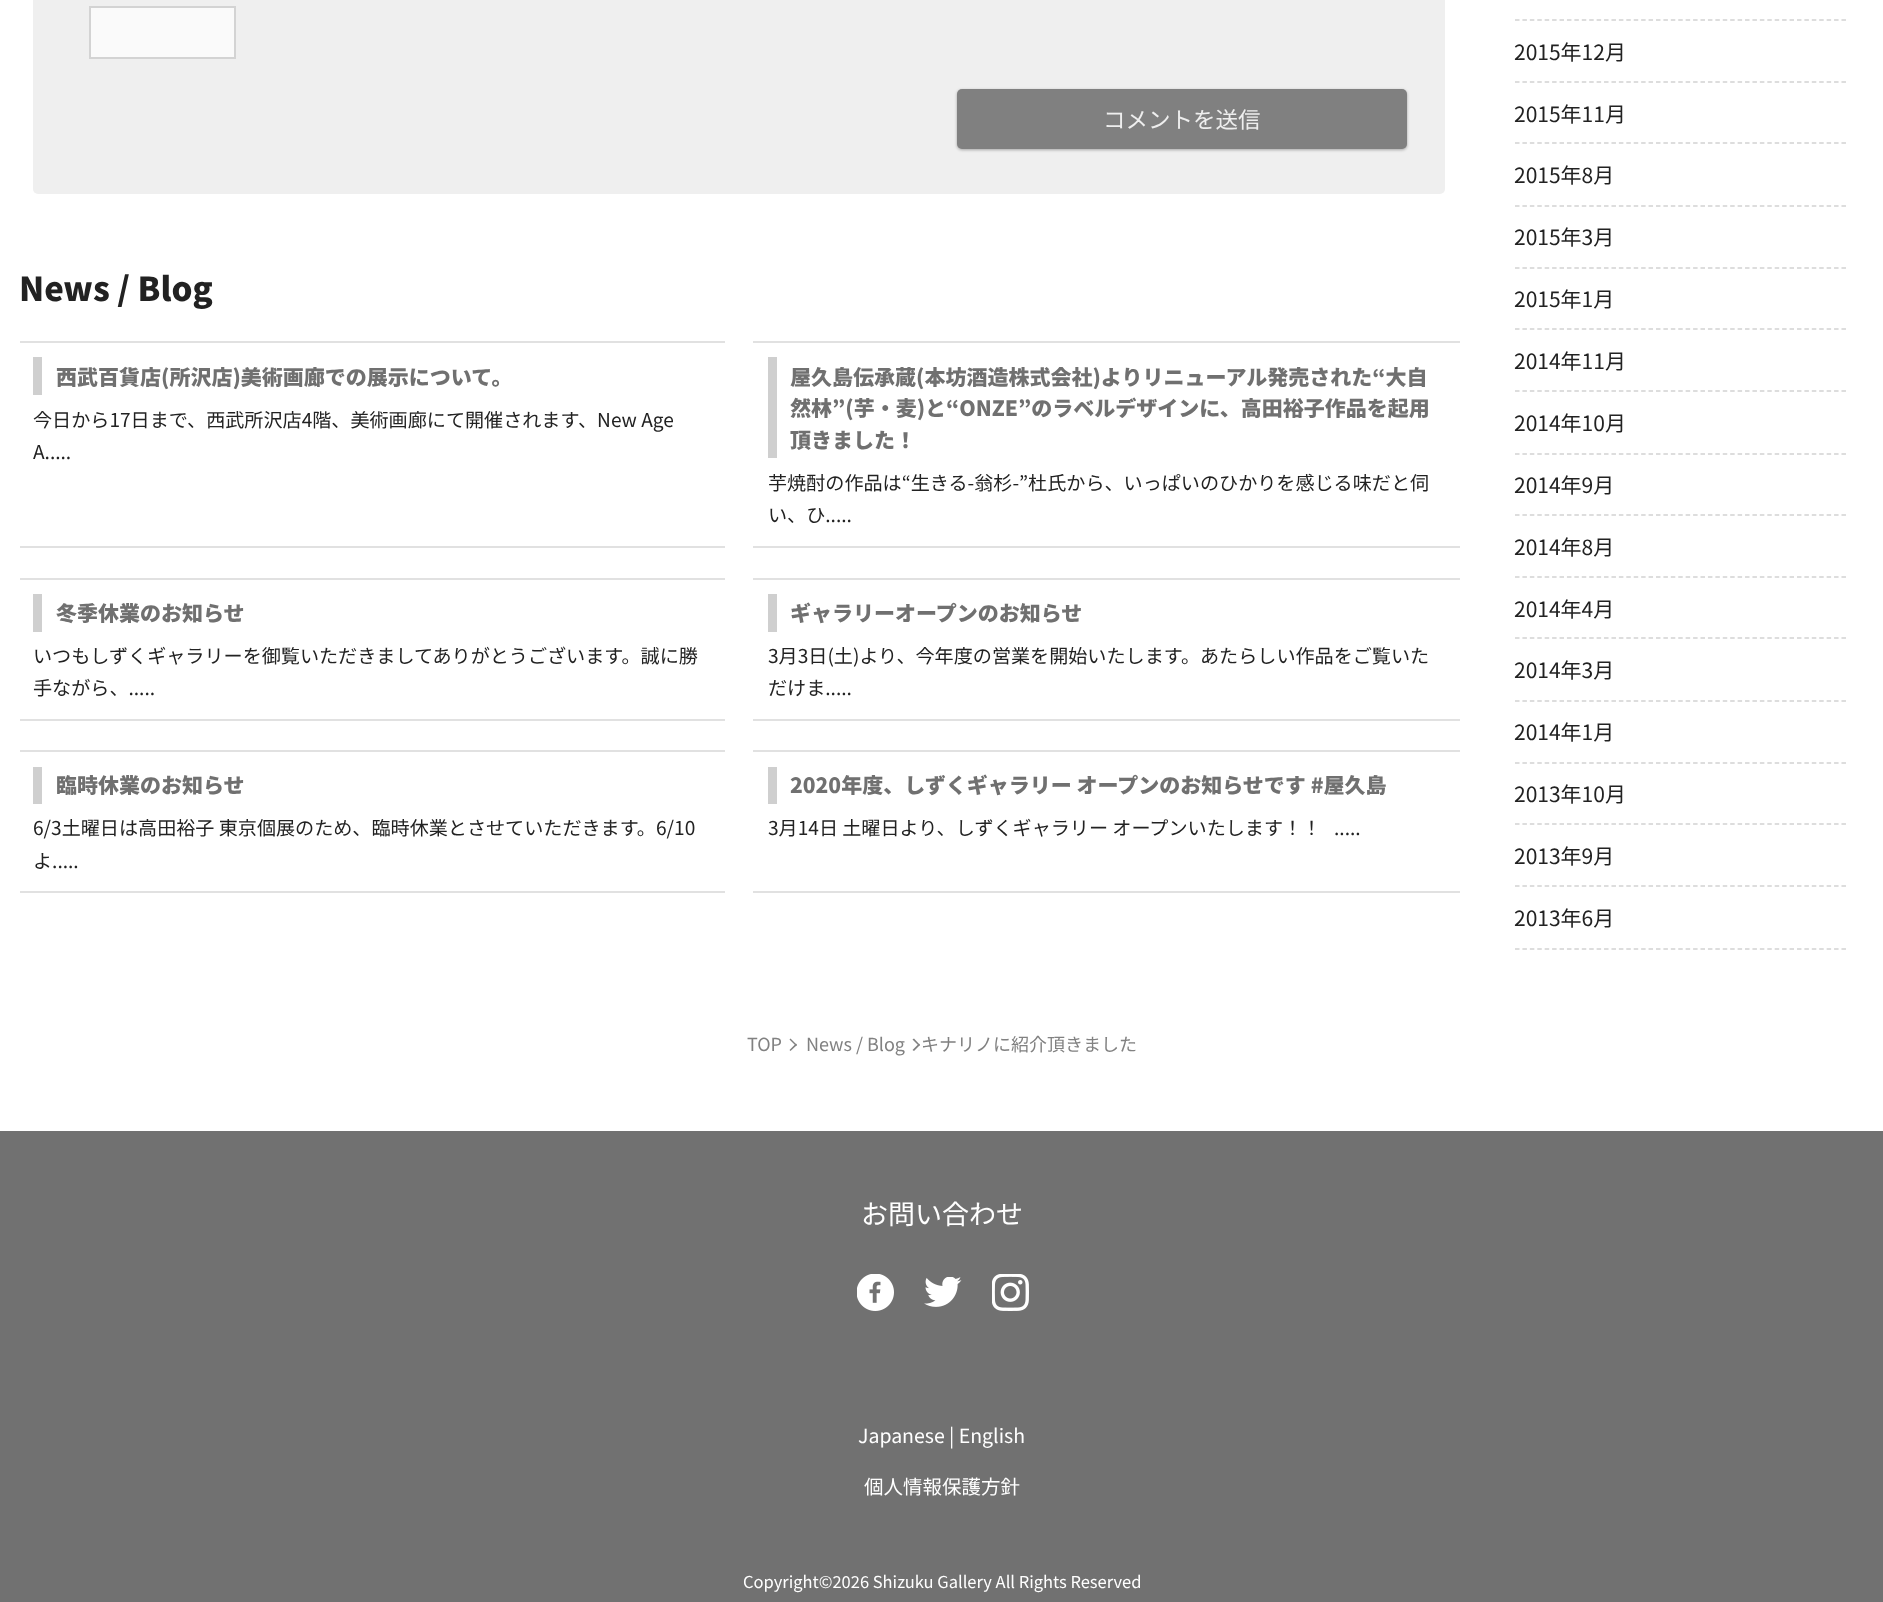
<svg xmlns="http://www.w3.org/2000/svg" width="1883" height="1602">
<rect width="100%" height="100%" fill="#fff"/>
<rect x="33" y="-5" width="1412" height="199" rx="5" fill="#efefef"/>
<rect x="90" y="7" width="145" height="51" fill="#fafafa" stroke="#d3d3d3" stroke-width="2"/>
<rect x="957" y="90" width="450" height="60" rx="5" fill="#0000004d" filter="blur(1.5px)"/>
<rect x="957" y="89" width="450" height="60" rx="5" fill="#808080"/>
<text x="1103" y="128" style="font-family:Noto Sans JP;font-size:22.5px;fill:#eee">コメントを送信</text>
<text x="19" y="301" style="font-family:Noto Sans JP;font-size:33px;font-weight:900;fill:#222">News / Blog</text>
<rect x="20" y="341" width="705" height="2" fill="#e1e1e1"/>
<rect x="20" y="546" width="705" height="2" fill="#e1e1e1"/>
<rect x="33" y="357" width="9" height="38" fill="#cfcfcf"/>
<text x="56" y="385" style="font-family:Noto Sans JP;font-size:21px;font-weight:900;fill:#707070">西武百貨店(所沢店)美術画廊での展示について。</text>
<text x="33" y="427" style="font-family:Noto Sans JP;font-size:19.1px;fill:#222">今日から17日まで、西武所沢店4階、美術画廊にて開催されます、New Age</text>
<text x="33" y="459" style="font-family:Noto Sans JP;font-size:19.1px;fill:#222">A.....</text>
<rect x="753" y="341" width="707" height="2" fill="#e1e1e1"/>
<rect x="753" y="546" width="707" height="2" fill="#e1e1e1"/>
<rect x="768" y="357" width="9" height="101" fill="#cfcfcf"/>
<text x="790" y="385" style="font-family:Noto Sans JP;font-size:21px;font-weight:900;fill:#707070">屋久島伝承蔵(本坊酒造株式会社)よりリニューアル発売された“大自</text>
<text x="790" y="416" style="font-family:Noto Sans JP;font-size:21px;font-weight:900;fill:#707070">然林”(芋・麦)と“ONZE”のラベルデザインに、高田裕子作品を起用</text>
<text x="790" y="448" style="font-family:Noto Sans JP;font-size:21px;font-weight:900;fill:#707070">頂きました！</text>
<text x="768" y="490" style="font-family:Noto Sans JP;font-size:19.1px;fill:#222">芋焼酎の作品は“生きる-翁杉-”杜氏から、いっぱいのひかりを感じる味だと伺</text>
<text x="768" y="522" style="font-family:Noto Sans JP;font-size:19.1px;fill:#222">い、ひ.....</text>
<rect x="20" y="578" width="705" height="2" fill="#e1e1e1"/>
<rect x="20" y="719" width="705" height="2" fill="#e1e1e1"/>
<rect x="33" y="594" width="9" height="38" fill="#cfcfcf"/>
<text x="56" y="621" style="font-family:Noto Sans JP;font-size:21px;font-weight:900;fill:#707070">冬季休業のお知らせ</text>
<text x="33" y="663" style="font-family:Noto Sans JP;font-size:19.1px;fill:#222">いつもしずくギャラリーを御覧いただきましてありがとうございます。誠に勝</text>
<text x="33" y="695" style="font-family:Noto Sans JP;font-size:19.1px;fill:#222">手ながら、.....</text>
<rect x="753" y="578" width="707" height="2" fill="#e1e1e1"/>
<rect x="753" y="719" width="707" height="2" fill="#e1e1e1"/>
<rect x="768" y="594" width="9" height="38" fill="#cfcfcf"/>
<text x="790" y="621" style="font-family:Noto Sans JP;font-size:21px;font-weight:900;fill:#707070">ギャラリーオープンのお知らせ</text>
<text x="768" y="663" style="font-family:Noto Sans JP;font-size:19.1px;fill:#222">3月3日(土)より、今年度の営業を開始いたします。あたらしい作品をご覧いた</text>
<text x="768" y="695" style="font-family:Noto Sans JP;font-size:19.1px;fill:#222">だけま.....</text>
<rect x="20" y="750" width="705" height="2" fill="#e1e1e1"/>
<rect x="20" y="891" width="705" height="2" fill="#e1e1e1"/>
<rect x="33" y="767" width="9" height="37" fill="#cfcfcf"/>
<text x="56" y="793" style="font-family:Noto Sans JP;font-size:21px;font-weight:900;fill:#707070">臨時休業のお知らせ</text>
<text x="33" y="835" style="font-family:Noto Sans JP;font-size:19.1px;fill:#222">6/3土曜日は高田裕子 東京個展のため、臨時休業とさせていただきます。6/10</text>
<text x="33" y="868" style="font-family:Noto Sans JP;font-size:19.1px;fill:#222">よ.....</text>
<rect x="753" y="750" width="707" height="2" fill="#e1e1e1"/>
<rect x="753" y="891" width="707" height="2" fill="#e1e1e1"/>
<rect x="768" y="767" width="9" height="37" fill="#cfcfcf"/>
<text x="790" y="793" style="font-family:Noto Sans JP;font-size:21px;font-weight:900;fill:#707070">2020年度、しずくギャラリー オープンのお知らせです #屋久島</text>
<text x="768" y="835" style="font-family:Noto Sans JP;font-size:19.1px;fill:#222" xml:space="preserve">3月14日 土曜日より、しずくギャラリー オープンいたします！！   .....</text>
<path d="M1515 20h331.5" fill="none" stroke="#d2d2d2" stroke-width="1.5" stroke-dasharray="4.5 2.92"/>
<path d="M1515 82h331.5" fill="none" stroke="#d2d2d2" stroke-width="1.5" stroke-dasharray="4.5 2.92"/>
<text x="1514" y="60" style="font-family:Noto Sans JP;font-size:21px;fill:#222">2015年12月</text>
<path d="M1515 143h331.5" fill="none" stroke="#d2d2d2" stroke-width="1.5" stroke-dasharray="4.5 2.92"/>
<text x="1514" y="122" style="font-family:Noto Sans JP;font-size:21px;fill:#222">2015年11月</text>
<path d="M1515 206h331.5" fill="none" stroke="#d2d2d2" stroke-width="1.5" stroke-dasharray="4.5 2.92"/>
<text x="1514" y="183" style="font-family:Noto Sans JP;font-size:21px;fill:#222">2015年8月</text>
<path d="M1515 268h331.5" fill="none" stroke="#d2d2d2" stroke-width="1.5" stroke-dasharray="4.5 2.92"/>
<text x="1514" y="245" style="font-family:Noto Sans JP;font-size:21px;fill:#222">2015年3月</text>
<path d="M1515 329h331.5" fill="none" stroke="#d2d2d2" stroke-width="1.5" stroke-dasharray="4.5 2.92"/>
<text x="1514" y="307" style="font-family:Noto Sans JP;font-size:21px;fill:#222">2015年1月</text>
<path d="M1515 391h331.5" fill="none" stroke="#d2d2d2" stroke-width="1.5" stroke-dasharray="4.5 2.92"/>
<text x="1514" y="369" style="font-family:Noto Sans JP;font-size:21px;fill:#222">2014年11月</text>
<path d="M1515 454h331.5" fill="none" stroke="#d2d2d2" stroke-width="1.5" stroke-dasharray="4.5 2.92"/>
<text x="1514" y="431" style="font-family:Noto Sans JP;font-size:21px;fill:#222">2014年10月</text>
<path d="M1515 515h331.5" fill="none" stroke="#d2d2d2" stroke-width="1.5" stroke-dasharray="4.5 2.92"/>
<text x="1514" y="493" style="font-family:Noto Sans JP;font-size:21px;fill:#222">2014年9月</text>
<path d="M1515 577h331.5" fill="none" stroke="#d2d2d2" stroke-width="1.5" stroke-dasharray="4.5 2.92"/>
<text x="1514" y="555" style="font-family:Noto Sans JP;font-size:21px;fill:#222">2014年8月</text>
<path d="M1515 638h331.5" fill="none" stroke="#d2d2d2" stroke-width="1.5" stroke-dasharray="4.5 2.92"/>
<text x="1514" y="617" style="font-family:Noto Sans JP;font-size:21px;fill:#222">2014年4月</text>
<path d="M1515 701h331.5" fill="none" stroke="#d2d2d2" stroke-width="1.5" stroke-dasharray="4.5 2.92"/>
<text x="1514" y="678" style="font-family:Noto Sans JP;font-size:21px;fill:#222">2014年3月</text>
<path d="M1515 763h331.5" fill="none" stroke="#d2d2d2" stroke-width="1.5" stroke-dasharray="4.5 2.92"/>
<text x="1514" y="740" style="font-family:Noto Sans JP;font-size:21px;fill:#222">2014年1月</text>
<path d="M1515 824h331.5" fill="none" stroke="#d2d2d2" stroke-width="1.5" stroke-dasharray="4.5 2.92"/>
<text x="1514" y="802" style="font-family:Noto Sans JP;font-size:21px;fill:#222">2013年10月</text>
<path d="M1515 886h331.5" fill="none" stroke="#d2d2d2" stroke-width="1.5" stroke-dasharray="4.5 2.92"/>
<text x="1514" y="864" style="font-family:Noto Sans JP;font-size:21px;fill:#222">2013年9月</text>
<path d="M1515 949h331.5" fill="none" stroke="#d2d2d2" stroke-width="1.5" stroke-dasharray="4.5 2.92"/>
<text x="1514" y="926" style="font-family:Noto Sans JP;font-size:21px;fill:#222">2013年6月</text>
<text x="747" y="1051" style="font-family:Noto Sans JP;font-size:18px;fill:#818181">TOP</text>
<path d="M790.5 1038.5l6.5 6.5l-1 1l-6.5-6.5z" fill="#818181"/>
<path d="M796 1043.5l1 1.5l-6.5 6l-1-1z" fill="#818181"/>
<text x="806" y="1051" style="font-family:Noto Sans JP;font-size:18px;fill:#818181">News / Blog</text>
<path d="M914 1038.5l6 6.5l-1 1l-6.5-6.5z" fill="#818181"/>
<path d="M919 1043.5l1 1.5l-6 6l-1.5-1z" fill="#818181"/>
<text x="921" y="1051" style="font-family:Noto Sans JP;font-size:18px;fill:#818181">キナリノに紹介頂きました</text>
<rect y="1131" width="1883" height="471" fill="#717171"/>
<text x="861" y="1224" style="font-family:Noto Sans JP;font-size:27px;fill:#fff">お問い合わせ</text>
<image x="857" y="1274" width="37" height="37" href="media/1.png"/>
<image x="924" y="1277" width="38" height="30" href="media/2.png"/>
<image x="992" y="1274" width="37" height="37" href="media/3.png"/>
<text x="858" y="1443" style="font-family:Noto Sans JP;font-size:19.5px;fill:#fff">Japanese | English</text>
<text x="864" y="1494" style="font-family:Noto Sans JP;font-size:19.5px;fill:#fff">個人情報保護方針</text>
<text x="743" y="1588" style="font-family:Noto Sans JP;font-size:16.5px;fill:#fff">Copyright©2026 Shizuku Gallery All Rights Reserved</text>
</svg>
